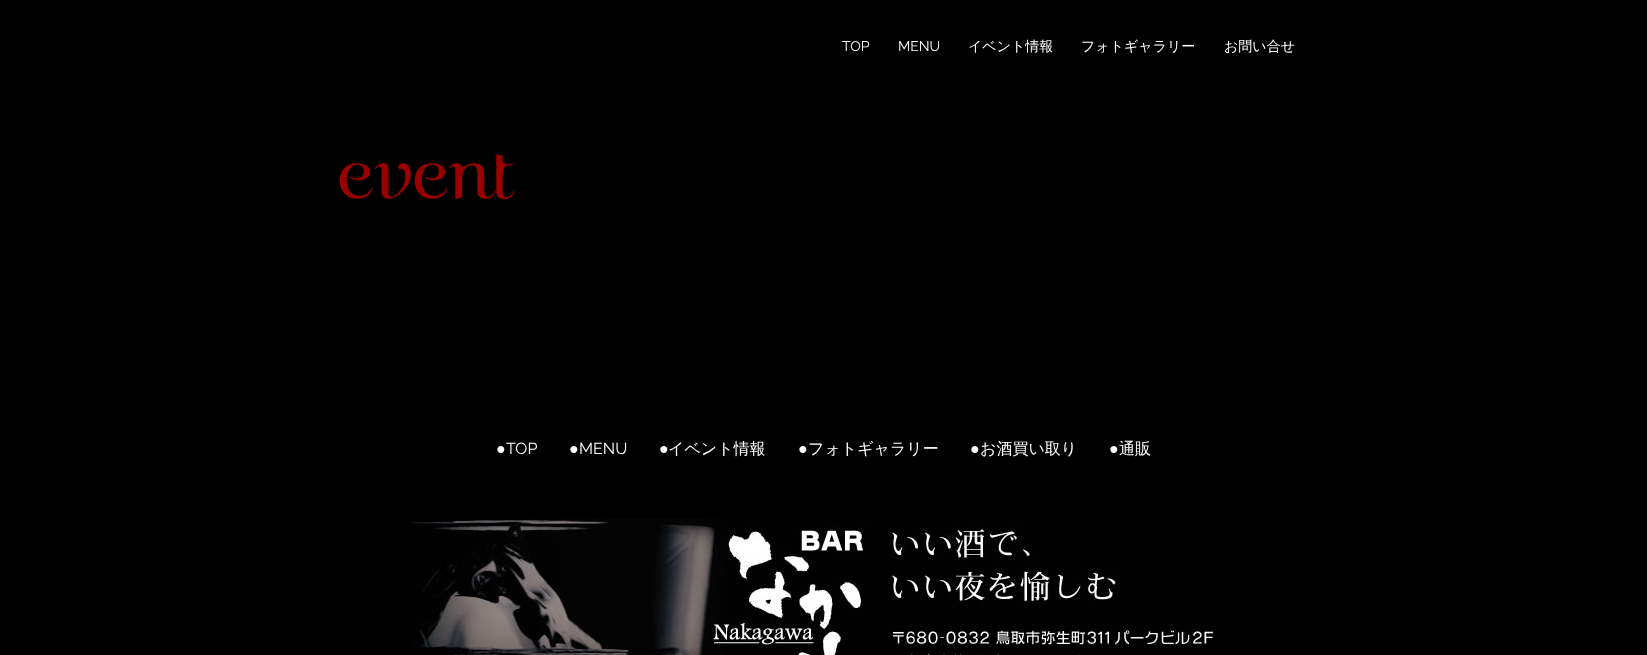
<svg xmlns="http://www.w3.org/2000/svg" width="1647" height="655">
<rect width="100%" height="100%" fill="#000"/>
<text x="842" y="51" style="font-family:Raleway;font-size:14px;fill:#fff">TOP</text>
<text x="898" y="51" style="font-family:Raleway;font-size:14px;fill:#fff">MENU</text>
<text x="968" y="51" style="font-family:WenQuanYi Zen Hei;font-size:14px;font-weight:500;fill:#fff">イベント情報</text>
<text x="1081" y="51" style="font-family:WenQuanYi Zen Hei;font-size:14px;font-weight:500;fill:#fff">フォトギャラリー</text>
<text x="1224" y="51" style="font-family:WenQuanYi Zen Hei;font-size:14px;font-weight:500;fill:#fff">お問い合せ</text>
<image x="339" y="154" width="176" height="45" href="media/1.png"/>
<text x="496" y="454" style="font-family:Liberation Serif;font-size:16px;fill:#fff">●</text>
<text x="506" y="454" style="font-family:Raleway;font-size:16px;fill:#fff">TOP</text>
<text x="569" y="454" style="font-family:Liberation Serif;font-size:16px;fill:#fff">●</text>
<text x="579" y="454" style="font-family:Raleway;font-size:16px;fill:#fff">MENU</text>
<text x="659" y="454" style="font-family:Liberation Serif;font-size:16px;fill:#fff">●</text>
<text x="668" y="454" style="font-family:WenQuanYi Zen Hei;font-size:16px;font-weight:500;fill:#fff">イベント情報</text>
<text x="798" y="454" style="font-family:Liberation Serif;font-size:16px;fill:#fff">●</text>
<text x="808" y="454" style="font-family:WenQuanYi Zen Hei;font-size:16px;font-weight:500;fill:#fff">フォトギャラリー</text>
<text x="970" y="454" style="font-family:Liberation Serif;font-size:16px;fill:#fff">●</text>
<text x="980" y="454" style="font-family:WenQuanYi Zen Hei;font-size:16px;font-weight:500;fill:#fff">お酒買い取り</text>
<text x="1109" y="454" style="font-family:Liberation Serif;font-size:16px;fill:#fff">●</text>
<text x="1119" y="454" style="font-family:WenQuanYi Zen Hei;font-size:16px;font-weight:500;fill:#fff">通販</text>
<image x="410" y="518" width="808" height="137" href="media/2.png"/>
</svg>
